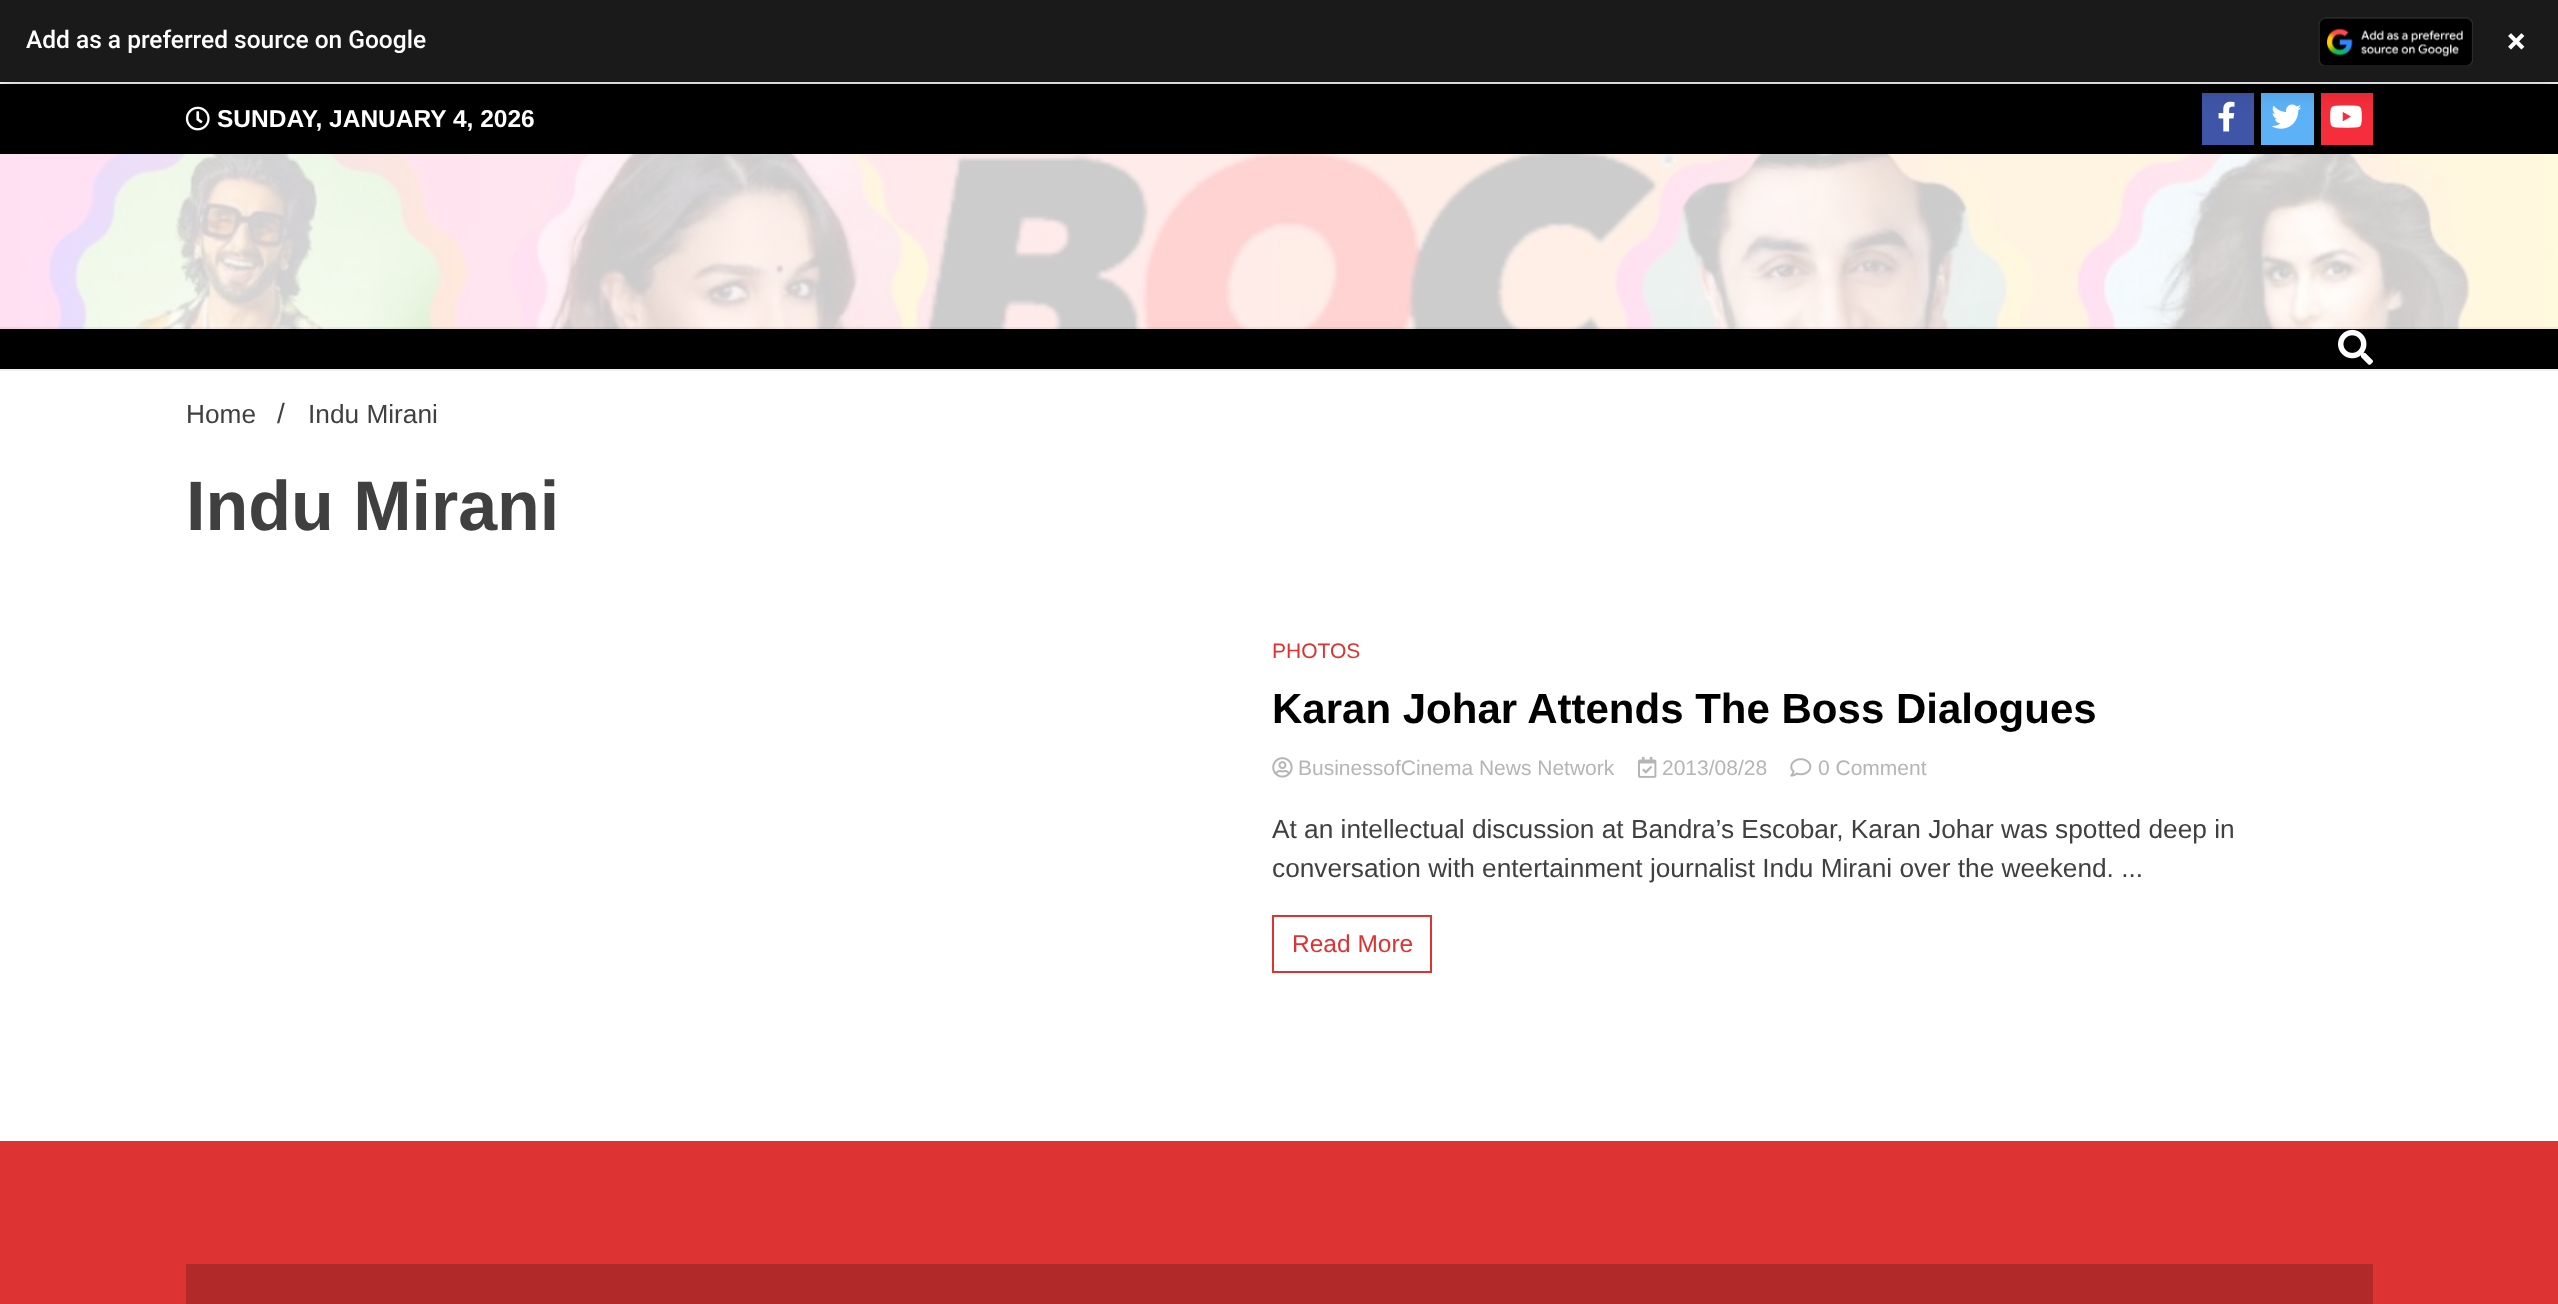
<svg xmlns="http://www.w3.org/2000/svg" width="2558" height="1304">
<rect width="100%" height="100%" fill="#fff"/>
<rect y="84" width="2558" height="70" fill="#000"/>
<image x="185" y="106" width="25" height="25" href="media/2.png"/>
<rect x="2202" y="93" width="52" height="52" fill="#3f55a7"/>
<image x="2218" y="101" width="17" height="31" href="media/3.png"/>
<rect x="2261" y="93" width="53" height="52" fill="#5db2f7"/>
<image x="2271" y="104" width="31" height="25" href="media/4.png"/>
<rect x="2321" y="93" width="52" height="52" fill="#f62d3a"/>
<image x="2330" y="105" width="32" height="23" href="media/5.png"/>
<rect y="5" width="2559" height="84" fill="#00000033" filter="blur(10.5px)"/>
<rect width="2558" height="82" fill="#1a1a1a"/>
<text x="26" y="48" style="font-family:Roboto;font-size:24.5px;font-weight:500;fill:#fff">Add as a preferred source on Google</text>
<image x="2318" y="17" width="155" height="49" href="media/1.png"/>
<text x="2507" y="53" style="font-family:Roboto;font-size:35px;font-weight:bold;fill:#fff">×</text>
<text x="217" y="127" style="font-family:Liberation Sans;font-size:24.5px;font-weight:bold;fill:#fff">SUNDAY, JANUARY 4, 2026</text>
<image x="0" y="154" width="2558" height="175" href="media/6.png"/>
<rect x="-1" y="328" width="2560" height="42" fill="none" stroke="#0000000f" stroke-width="2"/>
<rect y="329" width="2558" height="40" fill="#000"/>
<image x="2338" y="329" width="35" height="36" href="media/7.png"/>
<text x="186" y="423" style="font-family:Liberation Sans;font-size:26.25px;fill:#404040">Home</text>
<text x="277" y="423" style="font-family:Liberation Sans;font-size:28px;fill:#404040">/</text>
<text x="308" y="423" style="font-family:Liberation Sans;font-size:26.25px;fill:#404040">Indu Mirani</text>
<text x="186" y="530" style="font-family:Liberation Sans;font-size:70px;font-weight:bold;fill:#404040">Indu Mirani</text>
<text x="1272" y="658" style="font-family:Liberation Sans;font-size:21px;fill:#d33">PHOTOS</text>
<text x="1272" y="723" style="font-family:Liberation Sans;font-size:42px;font-weight:bold;fill:#000">Karan Johar Attends The Boss Dialogues</text>
<image x="1272" y="757" width="21" height="21" href="media/8.png"/>
<text x="1298" y="775" style="font-family:Liberation Sans;font-size:21px;fill:#b5b5b5">BusinessofCinema News Network</text>
<image x="1638" y="756" width="19" height="22" href="media/9.png"/>
<text x="1662" y="775" style="font-family:Liberation Sans;font-size:21px;fill:#b5b5b5">2013/08/28</text>
<image x="1790" y="758" width="22" height="19" href="media/10.png"/>
<text x="1818" y="775" style="font-family:Liberation Sans;font-size:21px;fill:#b5b5b5">0 Comment</text>
<text x="1272" y="838" style="font-family:Liberation Sans;font-size:26.25px;fill:#404040">At an intellectual discussion at Bandra’s Escobar, Karan Johar was spotted deep in</text>
<text x="1272" y="877" style="font-family:Liberation Sans;font-size:26.25px;fill:#404040">conversation with entertainment journalist Indu Mirani over the weekend. ...</text>
<rect x="1273" y="916" width="158" height="56" fill="none" stroke="#d33" stroke-width="2"/>
<text x="1292" y="952" style="font-family:Liberation Sans;font-size:24.5px;fill:#d33">Read More</text>
<rect y="1141" width="2558" height="163" fill="#d33"/>
<rect x="186" y="1264" width="2187" height="40" fill="#b12929"/>
</svg>
